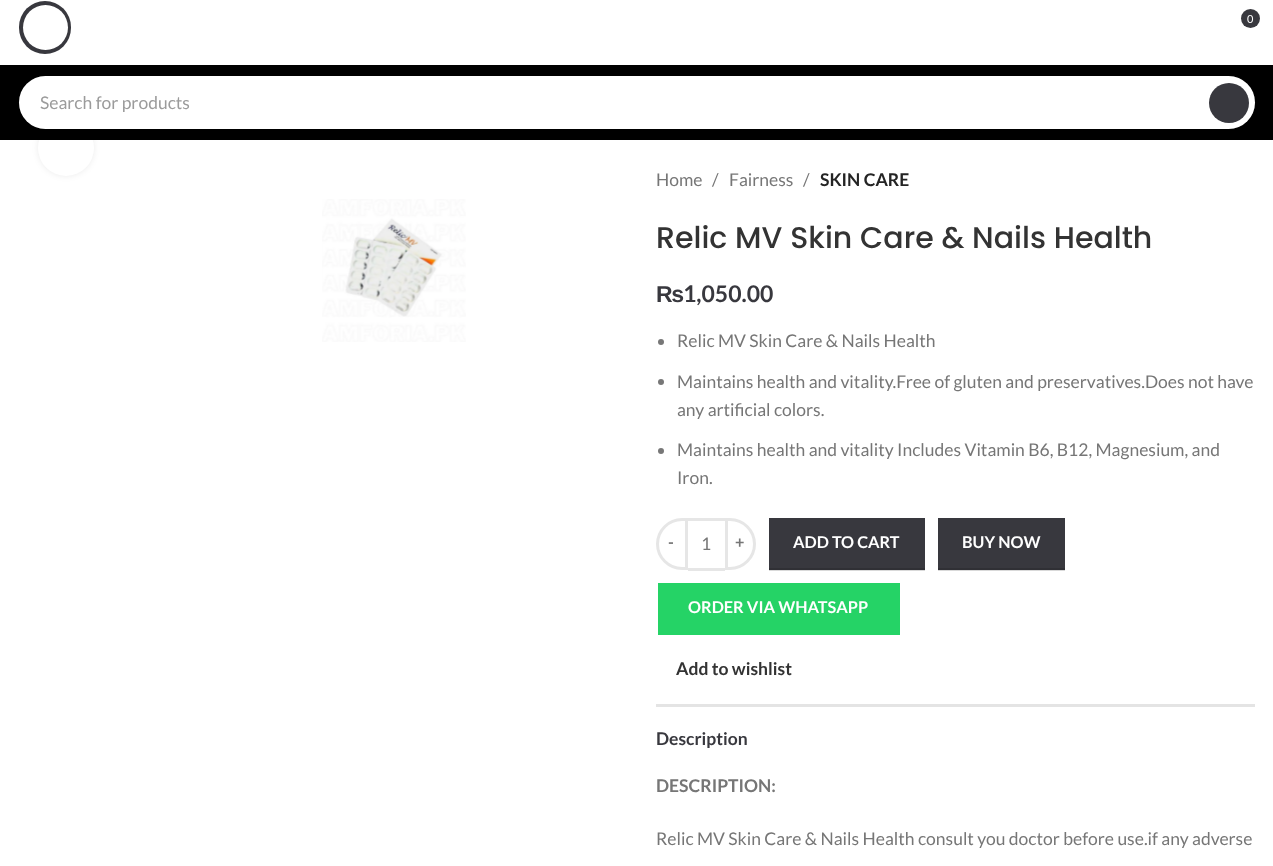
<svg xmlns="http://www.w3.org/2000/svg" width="1273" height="866">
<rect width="100%" height="100%" fill="#fff"/>
<rect x="938" y="570" width="127" height="1" fill="#d9d9d9"/>
<rect x="769" y="570" width="156" height="1" fill="#d9d9d9"/>
<rect x="19" y="1" width="52" height="53" rx="26" fill="#38383e"/>
<circle cx="45.5" cy="27.5" r="22.5" fill="#fff"/>
<circle cx="1250.5" cy="18.5" r="9.5" fill="#38383e"/>
<text x="1247" y="23" style="font-family:Lato;font-size:11px;fill:#fff">0</text>
<rect x="38" y="120" width="56" height="56" rx="28" fill="#00000014" filter="blur(3px)"/>
<circle cx="66" cy="148" r="28" fill="#fff"/>
<rect y="65" width="1273" height="75" fill="#000"/>
<rect x="19" y="76" width="1236" height="53" rx="26.5" fill="#fff"/>
<rect x="20.5" y="77.5" width="1233" height="50" rx="25" fill="none" stroke="#ffffff33" stroke-width="3"/>
<text x="40" y="109" style="font-family:Lato;font-size:17.5px;fill:#9b9b9b">Search for products</text>
<circle cx="1229" cy="103" r="20" fill="#38383e"/>
<image x="322" y="199" width="144" height="143" href="media/1.png"/>
<text x="656" y="186" style="font-family:Lato;font-size:17.5px;fill:#767676">Home</text>
<text x="712" y="186" style="font-family:Lato;font-size:17.5px;fill:#767676">/</text>
<text x="729" y="186" style="font-family:Lato;font-size:17.5px;fill:#767676">Fairness</text>
<text x="803" y="186" style="font-family:Lato;font-size:17.5px;fill:#767676">/</text>
<text x="820" y="186" style="font-family:Lato;font-size:17.5px;font-weight:bold;fill:#242424">SKIN CARE</text>
<text x="656" y="248" style="font-family:Poppins;font-size:30px;font-weight:500;fill:#333">Relic MV Skin Care &amp; Nails Health</text>
<text x="656" y="302" style="font-family:Liberation Sans;font-size:23px;font-weight:bold;fill:#38383e">₨</text>
<text x="683" y="302" style="font-family:Lato;font-size:23px;font-weight:bold;fill:#38383e">1,050.00</text>
<circle cx="661" cy="342" r="3" fill="#777"/>
<text x="677" y="347" style="font-family:Lato;font-size:17.5px;fill:#767676">Relic MV Skin Care &amp; Nails Health</text>
<circle cx="661" cy="382" r="3" fill="#777"/>
<text x="677" y="388" style="font-family:Lato;font-size:17.5px;fill:#767676">Maintains health and vitality.Free of gluten and preservatives.Does not have</text>
<text x="677" y="416" style="font-family:Lato;font-size:17.5px;fill:#767676">any artificial colors.</text>
<circle cx="661" cy="451" r="3" fill="#777"/>
<text x="677" y="456" style="font-family:Lato;font-size:17.5px;fill:#767676">Maintains health and vitality Includes Vitamin B6, B12, Magnesium, and</text>
<text x="677" y="484" style="font-family:Lato;font-size:17.5px;fill:#767676">Iron.</text>
<path d="M682 519.5h4.5v49h-4.5c-13.5 0-24.5-11-24.5-24.5c0-13.5 11-24.5 24.5-24.5z" fill="none" stroke="#e6e6e6" stroke-width="3"/>
<text x="668" y="548" style="font-family:Lato;font-size:16.25px;font-weight:bold;fill:#767676">-</text>
<rect x="688" y="518" width="37" height="3" fill="#e6e6e6"/>
<rect x="688" y="568" width="37" height="3" fill="#e6e6e6"/>
<text x="701" y="550" style="font-family:Lato;font-size:17.5px;fill:#767676">1</text>
<path d="M726.5 519.5h3.5c13.5 0 24.5 11 24.5 24.5c0 13.5-11 24.5-24.5 24.5h-3.5z" fill="none" stroke="#e6e6e6" stroke-width="3"/>
<text x="735" y="548" style="font-family:Lato;font-size:16.25px;font-weight:bold;fill:#767676">+</text>
<rect x="769" y="518" width="156" height="50" fill="#38383e"/>
<rect x="769" y="568" width="156" height="2" fill="#303035"/>
<text x="793" y="548" style="font-family:Lato;font-size:16.25px;font-weight:bold;fill:#fff">ADD TO CART</text>
<rect x="938" y="518" width="127" height="50" fill="#38383e"/>
<rect x="938" y="568" width="127" height="2" fill="#303035"/>
<text x="962" y="548" style="font-family:Lato;font-size:16.25px;font-weight:bold;fill:#fff">BUY NOW</text>
<rect x="658" y="583" width="242" height="52" fill="#25d366"/>
<text x="688" y="613" style="font-family:Lato;font-size:16.25px;font-weight:bold;fill:#fff">ORDER VIA WHATSAPP</text>
<text x="676" y="675" style="font-family:Lato;font-size:17.5px;font-weight:bold;fill:#333">Add to wishlist</text>
<rect x="656" y="704" width="599" height="3" fill="#e4e4e4"/>
<text x="656" y="745" style="font-family:Lato;font-size:17.5px;font-weight:bold;fill:#38383e">Description</text>
<text x="656" y="792" style="font-family:Lato;font-size:17.5px;font-weight:bold;fill:#767676">DESCRIPTION:</text>
<text x="656" y="845" style="font-family:Lato;font-size:17.5px;fill:#767676">Relic MV Skin Care &amp; Nails Health consult you doctor before use.if any adverse</text>
</svg>
